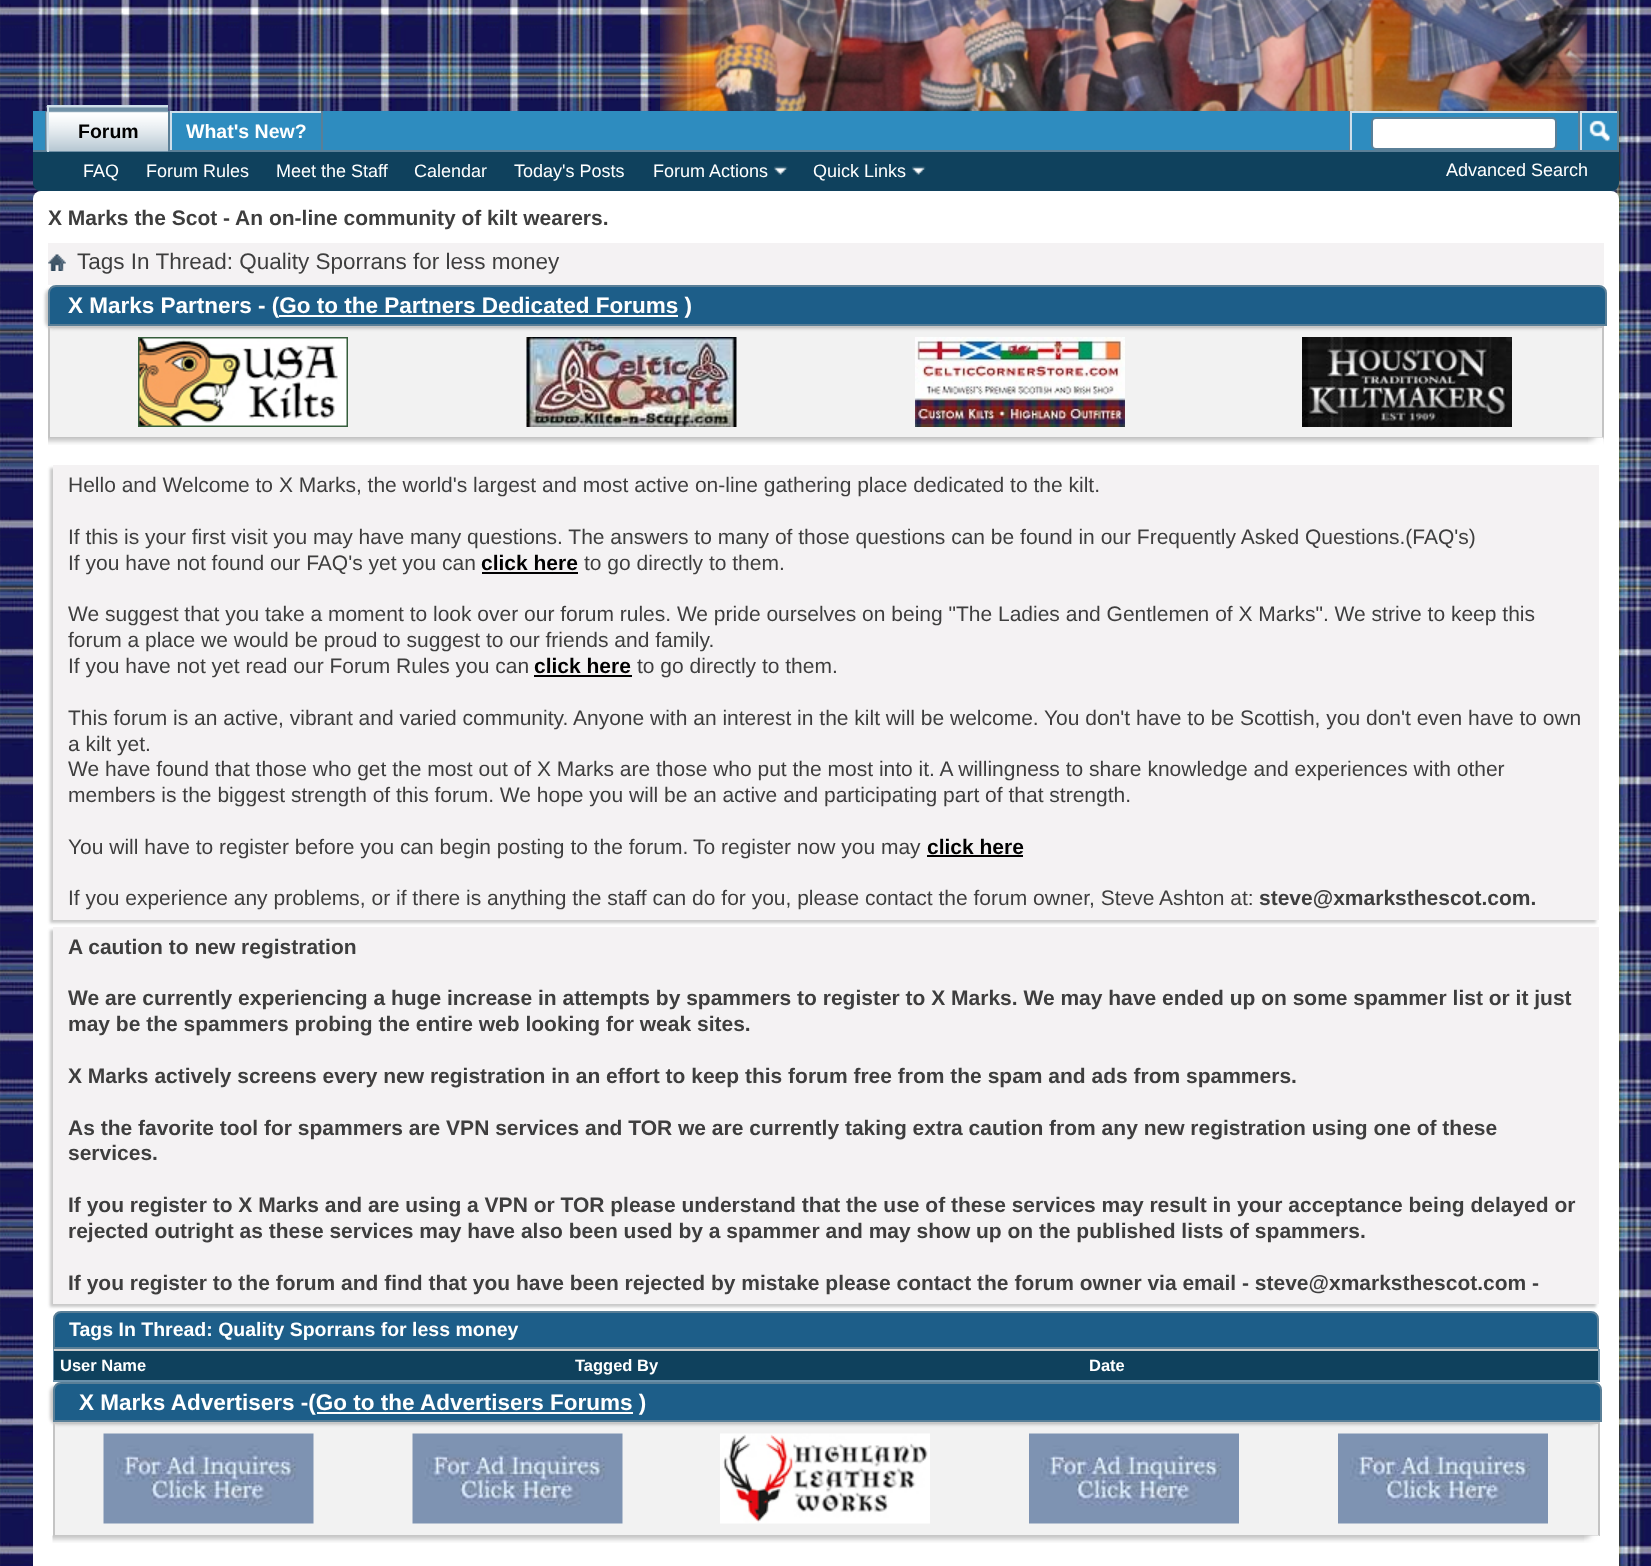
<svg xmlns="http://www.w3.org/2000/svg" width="1651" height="1566">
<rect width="100%" height="100%" fill="#fff"/>
<image x="0" y="0" width="1651" height="1566" href="media/1.png"/>
<image x="660" y="0" width="928" height="111" href="media/2.png"/>
<image x="660" y="0" width="928" height="111" href="media/3.png"/>
<path d="M33 111h1586v72c0 4.5-3.5 8-8 8h-1570c-4.5 0-8-3.5-8-8z" fill="#0f415d"/>
<rect x="33" y="111" width="1584" height="39" fill="#2e8cbf"/>
<rect x="321" y="111" width="2" height="41" fill="#5a7f97"/>
<rect x="170" y="111" width="151" height="2" fill="#cedfeb"/>
<rect x="170" y="111" width="2" height="41" fill="#cedfeb"/>
<text x="186" y="138" style="font-family:Liberation Sans;font-size:19.5px;font-weight:bold;fill:#fff">What's New?</text>
<rect x="168" y="111" width="2" height="39" fill="#5a7f97"/>
<rect x="45" y="111" width="2" height="39" fill="#5a7f97"/>
<rect x="33" y="150" width="1586" height="2" fill="#5a7f97"/>
<rect x="49" y="107" width="119" height="45" fill="#7192a8"/>
<image x="46" y="106" width="122" height="45" href="media/4.png"/>
<rect x="47" y="105" width="121" height="2" fill="#cedfeb"/>
<rect x="47" y="105" width="2" height="47" fill="#cedfeb"/>
<text x="78" y="138" style="font-family:Liberation Sans;font-size:19.5px;font-weight:bold;fill:#000">Forum</text>
<text x="83" y="177" style="font-family:Liberation Sans;font-size:18px;fill:#fff">FAQ</text>
<text x="146" y="177" style="font-family:Liberation Sans;font-size:18px;fill:#fff">Forum Rules</text>
<text x="276" y="177" style="font-family:Liberation Sans;font-size:18px;fill:#fff">Meet the Staff</text>
<text x="414" y="177" style="font-family:Liberation Sans;font-size:18px;fill:#fff">Calendar</text>
<text x="514" y="177" style="font-family:Liberation Sans;font-size:18px;fill:#fff">Today's Posts</text>
<text x="653" y="177" style="font-family:Liberation Sans;font-size:18px;fill:#fff">Forum Actions</text>
<image x="773" y="166" width="15" height="9" href="media/5.png"/>
<text x="813" y="177" style="font-family:Liberation Sans;font-size:18px;fill:#fff">Quick Links</text>
<image x="911" y="166" width="15" height="9" href="media/5.png"/>
<rect x="1349" y="111" width="1" height="39" fill="#5a7f97"/>
<rect x="1350" y="111" width="228" height="2" fill="#cedfeb"/>
<rect x="1350" y="111" width="2" height="39" fill="#cedfeb"/>
<rect x="1372" y="118" width="184" height="31" rx="4" fill="#fff" stroke="#5a7f97" stroke-width="2"/>
<rect x="1617" y="111" width="2" height="39" fill="#5a7f97"/>
<rect x="1578" y="111" width="2" height="39" fill="#5a7f97"/>
<rect x="1580" y="111" width="37" height="2" fill="#cedfeb"/>
<rect x="1580" y="111" width="2" height="39" fill="#cedfeb"/>
<image x="1589" y="120" width="21" height="22" href="media/6.png"/>
<text x="1446" y="176" style="font-family:Liberation Sans;font-size:18px;fill:#fff">Advanced Search</text>
<rect x="33" y="191" width="1586" height="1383" rx="8" fill="#fff"/>
<text x="48" y="225" style="font-family:Liberation Sans;font-size:21px;font-weight:bold;fill:#3e3e3e">X Marks the Scot - An on-line community of kilt wearers.</text>
<rect x="48" y="243" width="1556" height="42" fill="#f4f2f3"/>
<image x="48" y="254" width="18" height="17" href="media/7.png"/>
<text x="77" y="269" style="font-family:Liberation Sans;font-size:22.5px;fill:#3e3e3e">Tags In Thread: Quality Sporrans for less money</text>
<rect x="50" y="328" width="1552" height="109" fill="#f2f2f2"/>
<rect x="48" y="326" width="1556" height="2" fill="#c4c4c4"/>
<rect x="1602" y="326" width="2" height="112" fill="#c4c4c4"/>
<rect x="48" y="437" width="1556" height="2" fill="#c4c4c4"/>
<rect x="48" y="326" width="2" height="112" fill="#c4c4c4"/>
<rect x="45" y="288" width="1559" height="41" rx="8" fill="#c8c8c8" filter="blur(1.5px)"/>
<path d="M56 286h1543c4 0 7 3 7 7v32h-1557v-32c0-4 3-7 7-7z" fill="#1d5e89" stroke="#5a7f97" stroke-width="2"/>
<text x="68" y="313" style="font-family:Liberation Sans;font-size:22.5px;font-weight:bold;fill:#fff">X Marks Partners - (Go to the Partners Dedicated Forums )</text>
<rect x="279" y="315" width="399" height="2" fill="#fff"/>
<image x="138" y="337" width="210" height="90" href="media/8.png"/>
<image x="526" y="337" width="211" height="90" href="media/9.png"/>
<image x="915" y="337" width="210" height="90" href="media/10.png"/>
<image x="1302" y="337" width="210" height="90" href="media/11.png"/>
<image x="48" y="438" width="1556" height="7" href="media/12.png"/>
<image x="1588" y="437" width="16" height="8" href="media/13.png"/>
<rect x="50" y="468" width="1546" height="455" fill="#c8c8c8" filter="blur(1.5px)"/>
<rect x="53" y="465" width="1546" height="455" fill="#f4f2f3"/>
<text x="68" y="492" style="font-family:Liberation Sans;font-size:21px;fill:#3e3e3e">Hello and Welcome to X Marks, the world's largest and most active on-line gathering place dedicated to the kilt.</text>
<text x="68" y="544" style="font-family:Liberation Sans;font-size:21px;fill:#3e3e3e">If this is your first visit you may have many questions. The answers to many of those questions can be found in our Frequently Asked Questions.(FAQ's)</text>
<text x="68" y="570" style="font-family:Liberation Sans;font-size:21px;fill:#3e3e3e">If you have not found our FAQ's yet you can</text>
<text x="481" y="570" style="font-family:Liberation Sans;font-size:21px;font-weight:bold;fill:#000">click here</text>
<rect x="482" y="572" width="96" height="2" fill="#000"/>
<text x="584" y="570" style="font-family:Liberation Sans;font-size:21px;fill:#3e3e3e">to go directly to them.</text>
<text x="68" y="621" style="font-family:Liberation Sans;font-size:21px;fill:#3e3e3e">We suggest that you take a moment to look over our forum rules. We pride ourselves on being "The Ladies and Gentlemen of X Marks". We strive to keep this</text>
<text x="68" y="647" style="font-family:Liberation Sans;font-size:21px;fill:#3e3e3e">forum a place we would be proud to suggest to our friends and family.</text>
<text x="68" y="673" style="font-family:Liberation Sans;font-size:21px;fill:#3e3e3e">If you have not yet read our Forum Rules you can</text>
<text x="534" y="673" style="font-family:Liberation Sans;font-size:21px;font-weight:bold;fill:#000">click here</text>
<rect x="534" y="675" width="98" height="2" fill="#000"/>
<text x="637" y="673" style="font-family:Liberation Sans;font-size:21px;fill:#3e3e3e">to go directly to them.</text>
<text x="68" y="725" style="font-family:Liberation Sans;font-size:21px;fill:#3e3e3e">This forum is an active, vibrant and varied community. Anyone with an interest in the kilt will be welcome.</text>
<text x="1044" y="725" style="font-family:Liberation Sans;font-size:21px;fill:#3e3e3e">You don't have to be Scottish, you don't even have to own</text>
<text x="68" y="751" style="font-family:Liberation Sans;font-size:21px;fill:#3e3e3e">a kilt yet.</text>
<text x="68" y="776" style="font-family:Liberation Sans;font-size:21px;fill:#3e3e3e">We have found that those who get the most out of X Marks are those who put the most into it. A willingness to share knowledge and experiences with other</text>
<text x="68" y="802" style="font-family:Liberation Sans;font-size:21px;fill:#3e3e3e">members is the biggest strength of this forum. We hope you will be an active and participating part of that strength.</text>
<text x="68" y="854" style="font-family:Liberation Sans;font-size:21px;fill:#3e3e3e">You will have to register before you can begin posting to the forum.</text>
<text x="693" y="854" style="font-family:Liberation Sans;font-size:21px;fill:#3e3e3e">To register now you may</text>
<text x="927" y="854" style="font-family:Liberation Sans;font-size:21px;font-weight:bold;fill:#000">click here</text>
<rect x="927" y="855" width="96" height="2" fill="#000"/>
<text x="68" y="905" style="font-family:Liberation Sans;font-size:21px;fill:#3e3e3e">If you experience any problems, or if there is anything the staff can do for you, please contact the forum owner, Steve Ashton at:</text>
<text x="1259" y="905" style="font-family:Liberation Sans;font-size:21px;font-weight:bold;fill:#3e3e3e">steve@xmarksthescot.com.</text>
<rect x="50" y="930" width="1546" height="377" fill="#c8c8c8" filter="blur(1.5px)"/>
<rect x="53" y="927" width="1546" height="377" fill="#f4f2f3"/>
<text x="68" y="954" style="font-family:Liberation Sans;font-size:21px;font-weight:bold;fill:#3e3e3e">A caution to new registration</text>
<text x="68" y="1005" style="font-family:Liberation Sans;font-size:21px;font-weight:bold;fill:#3e3e3e">We are currently experiencing a huge increase in attempts by spammers to register to X Marks. We may have ended up on some spammer list or it just</text>
<text x="68" y="1031" style="font-family:Liberation Sans;font-size:21px;font-weight:bold;fill:#3e3e3e">may be the spammers probing the entire web looking for weak sites.</text>
<text x="68" y="1083" style="font-family:Liberation Sans;font-size:21px;font-weight:bold;fill:#3e3e3e">X Marks actively screens every new registration in an effort to keep this forum free from the spam and ads from spammers.</text>
<text x="68" y="1135" style="font-family:Liberation Sans;font-size:21px;font-weight:bold;fill:#3e3e3e">As the favorite tool for spammers are VPN services and TOR we are currently taking extra caution from any new registration using one of these</text>
<text x="68" y="1160" style="font-family:Liberation Sans;font-size:21px;font-weight:bold;fill:#3e3e3e">services.</text>
<text x="68" y="1212" style="font-family:Liberation Sans;font-size:21px;font-weight:bold;fill:#3e3e3e">If you register to X Marks and are using a VPN or TOR please understand that the use of these services may result in your acceptance being delayed or</text>
<text x="68" y="1238" style="font-family:Liberation Sans;font-size:21px;font-weight:bold;fill:#3e3e3e">rejected outright as these services may have also been used by a spammer and may show up on the published lists of spammers.</text>
<text x="68" y="1290" style="font-family:Liberation Sans;font-size:21px;font-weight:bold;fill:#3e3e3e">If you register to the forum and find that you have been rejected by mistake please contact the forum owner via email - steve@xmarksthescot.com -</text>
<path d="M61 1312h1530c4 0 7 3 7 7v29h-1544v-29c0-4 3-7 7-7z" fill="#1d5e89" stroke="#5a7f97" stroke-width="2"/>
<text x="69" y="1336" style="font-family:Liberation Sans;font-size:19.5px;font-weight:bold;fill:#fff">Tags In Thread: Quality Sporrans for less money</text>
<rect x="1598" y="1349" width="2" height="33" fill="#6b91ab"/>
<rect x="53" y="1380" width="1546" height="2" fill="#6b91ab"/>
<rect x="53" y="1349" width="2" height="33" fill="#6b91ab"/>
<rect x="54" y="1351" width="1544" height="29" fill="#0f415d"/>
<rect x="54" y="1349" width="1544" height="2" fill="#cecece"/>
<text x="60" y="1371" style="font-family:Liberation Sans;font-size:16.5px;font-weight:bold;fill:#fff">User Name</text>
<text x="575" y="1371" style="font-family:Liberation Sans;font-size:16.5px;font-weight:bold;fill:#fff">Tagged By</text>
<text x="1089" y="1371" style="font-family:Liberation Sans;font-size:16.5px;font-weight:bold;fill:#fff">Date</text>
<rect x="55" y="1424" width="1543" height="111" fill="#f2f2f2"/>
<rect x="53" y="1422" width="1546" height="2" fill="#c4c4c4"/>
<rect x="1598" y="1422" width="2" height="114" fill="#c4c4c4"/>
<rect x="53" y="1535" width="1546" height="1" fill="#c4c4c4"/>
<rect x="53" y="1422" width="2" height="114" fill="#c4c4c4"/>
<rect x="50" y="1385" width="1549" height="40" rx="8" fill="#c8c8c8" filter="blur(1.5px)"/>
<path d="M61 1383h1533c4 0 7 3 7 7v31h-1547v-31c0-4 3-7 7-7z" fill="#1d5e89" stroke="#5a7f97" stroke-width="2"/>
<text x="79" y="1410" style="font-family:Liberation Sans;font-size:22.5px;font-weight:bold;fill:#fff">X Marks Advertisers -(Go to the Advertisers Forums )</text>
<rect x="317" y="1412" width="316" height="2" fill="#fff"/>
<image x="103" y="1433" width="211" height="91" href="media/14.png"/>
<image x="412" y="1433" width="211" height="91" href="media/15.png"/>
<image x="720" y="1433" width="210" height="91" href="media/16.png"/>
<image x="1029" y="1433" width="210" height="91" href="media/17.png"/>
<image x="1338" y="1433" width="210" height="91" href="media/18.png"/>
<image x="52" y="1535" width="1547" height="8" href="media/19.png"/>
<image x="1584" y="1535" width="15" height="8" href="media/20.png"/>
</svg>
